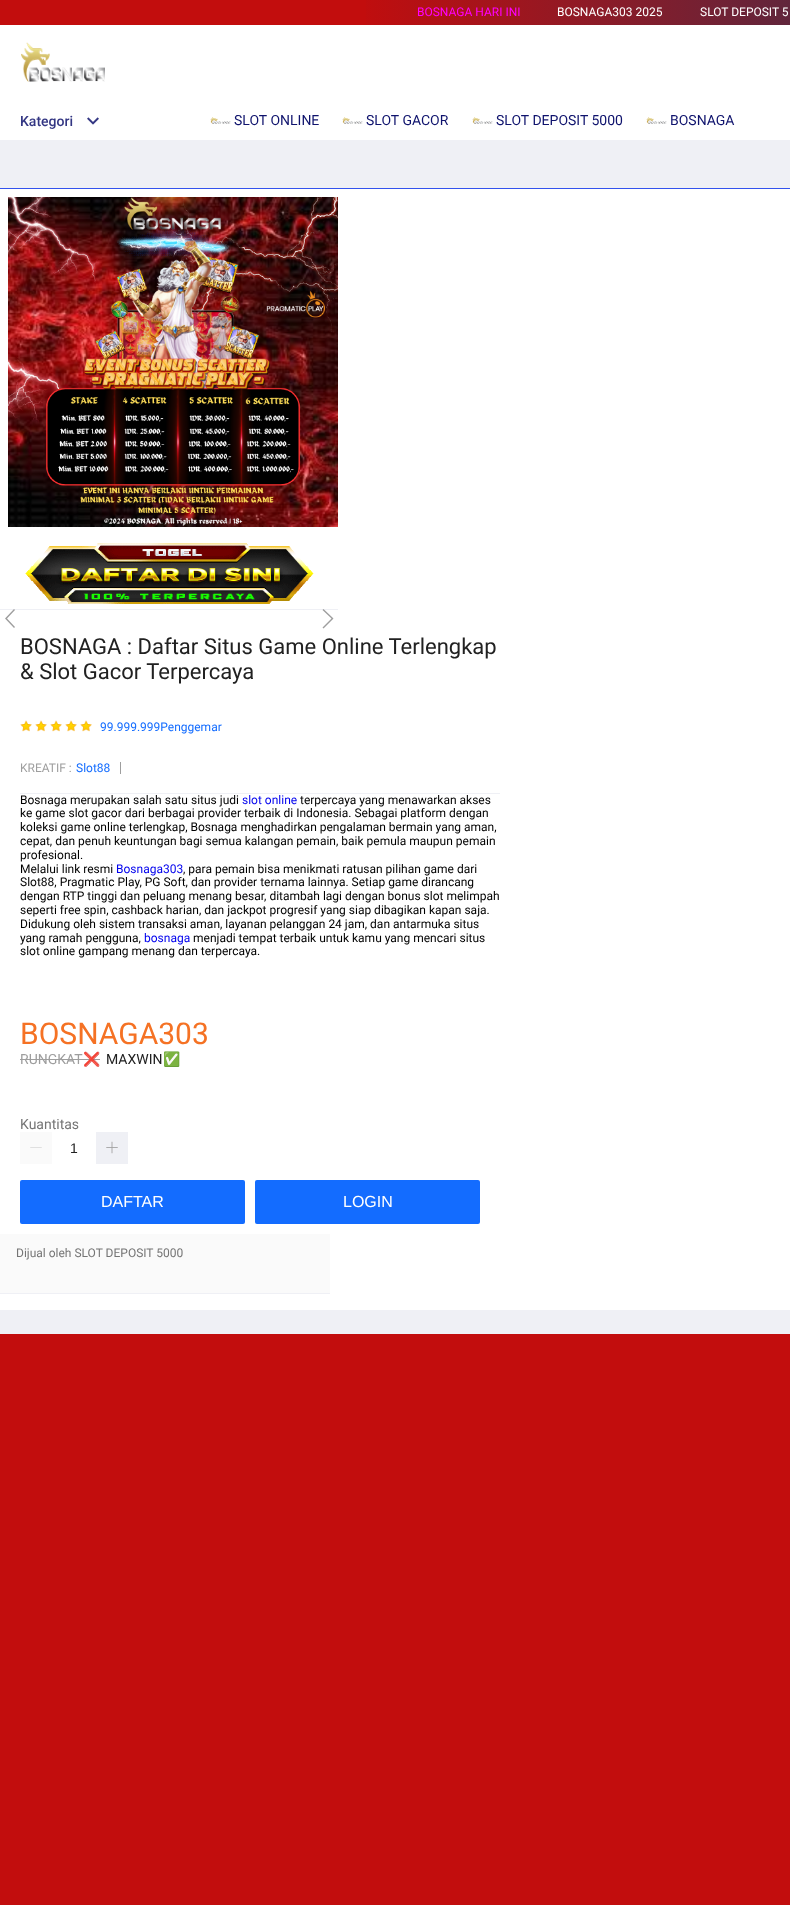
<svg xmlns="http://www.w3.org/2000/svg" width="790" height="1905">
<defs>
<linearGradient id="g1" gradientUnits="userSpaceOnUse" x1="0" y1="14" x2="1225" y2="11"><stop offset="0.29" stop-color="#c20d0d"/><stop offset="1" stop-color="#003e6b"/></linearGradient>
</defs>
<rect width="100%" height="100%" fill="#c20d0d"/>
<rect y="25" width="790" height="115" fill="#fff"/>
<rect x="366" width="424" height="25" fill="url(#g1)"/>
<text x="417" y="16" style="font-family:Roboto;font-size:12px;fill:#f0f">BOSNAGA HARI INI</text>
<text x="557" y="16" style="font-family:Roboto;font-size:12px;fill:#fff">BOSNAGA303 2025</text>
<text x="700" y="16" style="font-family:Roboto;font-size:12px;fill:#fff">SLOT DEPOSIT 5</text>
<image x="21" y="42" width="84" height="40" href="media/1.png"/>
<text x="20" y="126" style="font-family:Roboto;font-size:14px;font-weight:500;fill:#333683">Kategori</text>
<image x="87" y="117" width="12" height="8" href="media/2.png"/>
<image x="210" y="117" width="21" height="7" href="media/3.png"/>
<text x="234" y="125" style="font-family:Roboto;font-size:14px;fill:#0f136d">SLOT ONLINE</text>
<image x="342" y="117" width="21" height="7" href="media/4.png"/>
<text x="366" y="125" style="font-family:Roboto;font-size:14px;fill:#0f136d">SLOT GACOR</text>
<image x="472" y="117" width="21" height="7" href="media/4.png"/>
<text x="496" y="125" style="font-family:Roboto;font-size:14px;fill:#0f136d">SLOT DEPOSIT 5000</text>
<image x="646" y="117" width="21" height="7" href="media/4.png"/>
<text x="670" y="125" style="font-family:Roboto;font-size:14px;fill:#0f136d">BOSNAGA</text>
<rect y="140" width="790" height="48" fill="#eff0f5"/>
<rect y="188" width="790" height="1" fill="#3352ed"/>
<rect y="1310" width="790" height="24" fill="#eff0f5"/>
<rect y="189" width="790" height="1121" fill="#fff"/>
<rect y="609" width="338" height="1" fill="#eff0f5"/>
<image x="8" y="197" width="330" height="330" href="media/5.png"/>
<image x="25" y="543" width="289" height="61" href="media/6.png"/>
<path d="M15 627l-8-8.5l8-8.5l-1-1l-9 9.5l9 9.5z" fill="#9e9e9e"/>
<path d="M323.5 628.5l-1-1l9-9l-9-8.5l1-1l10 9.5z" fill="#9e9e9e"/>
<text x="20" y="654" style="font-family:Roboto;font-size:22px;fill:#212121">BOSNAGA : Daftar Situs Game Online Terlengkap</text>
<text x="20" y="679" style="font-family:Roboto;font-size:22px;fill:#212121">&amp; Slot Gacor Terpercaya</text>
<image x="20" y="720" width="12" height="12" href="media/7.png"/>
<image x="35" y="720" width="12" height="12" href="media/7.png"/>
<image x="50" y="720" width="12" height="12" href="media/7.png"/>
<image x="65" y="720" width="12" height="12" href="media/7.png"/>
<image x="80" y="720" width="12" height="12" href="media/7.png"/>
<text x="100" y="731" style="font-family:Roboto;font-size:12px;fill:#136cff">99.999.999Penggemar</text>
<rect x="20" y="793" width="480" height="1" fill="#eff0f5"/>
<text x="20" y="772" style="font-family:Roboto;font-size:12px;fill:#9e9e9e">KREATIF :</text>
<text x="76" y="772" style="font-family:Roboto;font-size:12px;fill:#136cff">Slot88</text>
<rect x="120" y="762" width="1" height="12" fill="#9e9e9e"/>
<text x="20" y="804" style="font-family:Roboto;font-size:12px;fill:#000">Bosnaga merupakan salah satu situs judi</text>
<text x="242" y="804" style="font-family:Roboto;font-size:12px;fill:#00e">slot online</text>
<text x="300" y="804" style="font-family:Roboto;font-size:12px;fill:#000">terpercaya yang menawarkan akses</text>
<text x="20" y="817" style="font-family:Roboto;font-size:12px;fill:#000">ke game slot gacor dari berbagai provider terbaik di Indonesia. Sebagai platform dengan</text>
<text x="20" y="831" style="font-family:Roboto;font-size:12px;fill:#000">koleksi game online terlengkap, Bosnaga menghadirkan pengalaman bermain yang aman,</text>
<text x="20" y="845" style="font-family:Roboto;font-size:12px;fill:#000">cepat, dan penuh keuntungan bagi semua kalangan pemain, baik pemula maupun pemain</text>
<text x="20" y="859" style="font-family:Roboto;font-size:12px;fill:#000">profesional.</text>
<text x="20" y="873" style="font-family:Roboto;font-size:12px;fill:#000">Melalui link resmi</text>
<text x="116" y="873" style="font-family:Roboto;font-size:12px;fill:#00e">Bosnaga303</text>
<text x="183" y="873" style="font-family:Roboto;font-size:12px;fill:#000">, para pemain bisa menikmati ratusan pilihan game dari</text>
<text x="20" y="886" style="font-family:Roboto;font-size:12px;fill:#000">Slot88, Pragmatic Play, PG Soft, dan provider ternama lainnya. Setiap game dirancang</text>
<text x="20" y="900" style="font-family:Roboto;font-size:12px;fill:#000">dengan RTP tinggi dan peluang menang besar, ditambah lagi dengan bonus slot melimpah</text>
<text x="20" y="914" style="font-family:Roboto;font-size:12px;fill:#000">seperti free spin, cashback harian, dan jackpot progresif yang siap dibagikan kapan saja.</text>
<text x="20" y="928" style="font-family:Roboto;font-size:12px;fill:#000">Didukung oleh sistem transaksi aman, layanan pelanggan 24 jam, dan antarmuka situs</text>
<text x="20" y="942" style="font-family:Roboto;font-size:12px;fill:#000">yang ramah pengguna,</text>
<text x="144" y="942" style="font-family:Roboto;font-size:12px;fill:#00e">bosnaga</text>
<text x="193" y="942" style="font-family:Roboto;font-size:12px;fill:#000">menjadi tempat terbaik untuk kamu yang mencari situs</text>
<text x="20" y="955" style="font-family:Roboto;font-size:12px;fill:#000">slot online gampang menang dan terpercaya.</text>
<text x="20" y="1044" style="font-family:Roboto;font-size:30px;fill:#f57224">BOSNAGA303</text>
<text x="20" y="1064" style="font-family:Roboto;font-size:14px;fill:#9e9e9e">RUNGKAT</text>
<rect x="20" y="1059" width="80" height="1" fill="#9e9e9e"/>
<text x="83" y="1064" style="font-family:Noto Color Emoji;font-size:14px;fill:#9e9e9e">❌</text>
<text x="106" y="1064" style="font-family:Roboto;font-size:14px;fill:#212121">MAXWIN</text>
<text x="163" y="1064" style="font-family:Noto Color Emoji;font-size:14px;fill:#212121">✅</text>
<text x="20" y="1129" style="font-family:Roboto;font-size:14px;fill:#757575">Kuantitas</text>
<rect x="20" y="1132" width="32" height="32" fill="#fafafa"/>
<image x="30" y="1147" width="12" height="1" href="media/8.png"/>
<rect x="96" y="1132" width="32" height="32" fill="#eff0f5"/>
<image x="106" y="1141" width="12" height="13" href="media/9.png"/>
<text x="70" y="1153" style="font-family:Liberation Sans;font-size:14px;fill:#212121">1</text>
<rect x="20" y="1180" width="225" height="44" rx="2" fill="#136cff"/>
<text x="101" y="1207" style="font-family:Liberation Sans;font-size:16px;fill:#fff">DAFTAR</text>
<rect x="255" y="1180" width="225" height="44" rx="2" fill="#136cff"/>
<text x="343" y="1207" style="font-family:Liberation Sans;font-size:16px;fill:#fff">LOGIN</text>
<rect y="1234" width="330" height="59" fill="#fafafa"/>
<text x="16" y="1257" style="font-family:Roboto;font-size:12px;fill:#757575">Dijual oleh SLOT DEPOSIT 5000</text>
<rect y="1293" width="330" height="1" fill="#eff0f5"/>
</svg>
